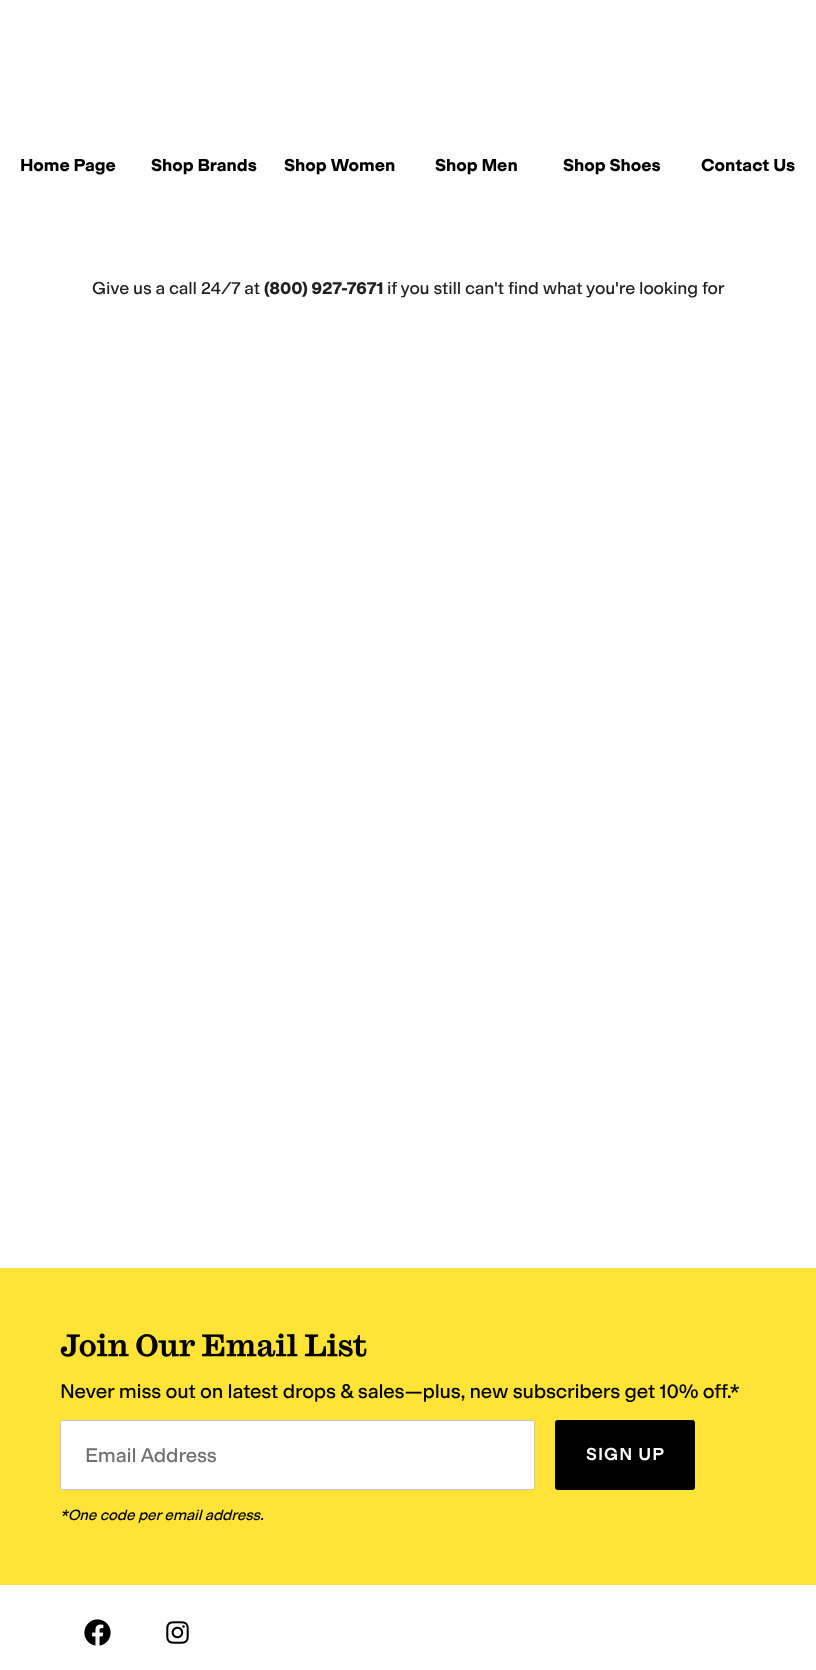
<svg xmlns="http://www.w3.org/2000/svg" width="816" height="1670">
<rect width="100%" height="100%" fill="#fff"/>
<text x="20" y="171" style="font-family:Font;font-size:17.5px;font-weight:bold;fill:#000">Home Page</text>
<text x="151" y="171" style="font-family:Font;font-size:17.5px;font-weight:bold;fill:#000">Shop Brands</text>
<text x="284" y="171" style="font-family:Font;font-size:17.5px;font-weight:bold;fill:#000">Shop Women</text>
<text x="435" y="171" style="font-family:Font;font-size:17.5px;font-weight:bold;fill:#000">Shop Men</text>
<text x="563" y="171" style="font-family:Font;font-size:17.5px;font-weight:bold;fill:#000">Shop Shoes</text>
<text x="701" y="171" style="font-family:Font;font-size:17.5px;font-weight:bold;fill:#000">Contact Us</text>
<text x="92" y="294" style="font-family:Font;font-size:17.5px;letter-spacing:-0.15px;fill:#1f1f1f">Give us a call 24/7 at</text>
<text x="264" y="294" style="font-family:Font;font-size:17.5px;font-weight:bold;letter-spacing:-0.15px;fill:#1f1f1f">(800) 927-7671</text>
<text x="387" y="294" style="font-family:Font;font-size:17.5px;letter-spacing:-0.15px;fill:#1f1f1f">if you still can't find what you're looking for</text>
<rect y="1268" width="816" height="317" fill="#ffe337"/>
<image x="60" y="1333" width="307" height="24" href="media/1.png"/>
<text x="60" y="1398" style="font-family:Font;font-size:20px;letter-spacing:-0.2px;fill:#000">Never miss out on latest drops &amp; sales—plus, new subscribers get 10% off.*</text>
<rect x="60.5" y="1420.5" width="474" height="69" rx="2" fill="#fff" stroke="#c5c5c5"/>
<text x="85" y="1462" style="font-family:Font;font-size:20px;letter-spacing:-0.15px;fill:#707070">Email Address</text>
<rect x="555.5" y="1420.5" width="139" height="69" rx="2" fill="#000" stroke="#000"/>
<text x="586" y="1460" style="font-family:Font;font-size:17.5px;font-weight:500;letter-spacing:1px;fill:#fff">SIGN UP</text>
<text x="60" y="1520" style="font-family:Font;font-size:15px;font-style:italic;letter-spacing:-0.15px;fill:#000">*One code per email address.</text>
<image x="84" y="1619" width="27" height="27" href="media/2.png"/>
<image x="166" y="1621" width="23" height="23" href="media/3.png"/>
</svg>
